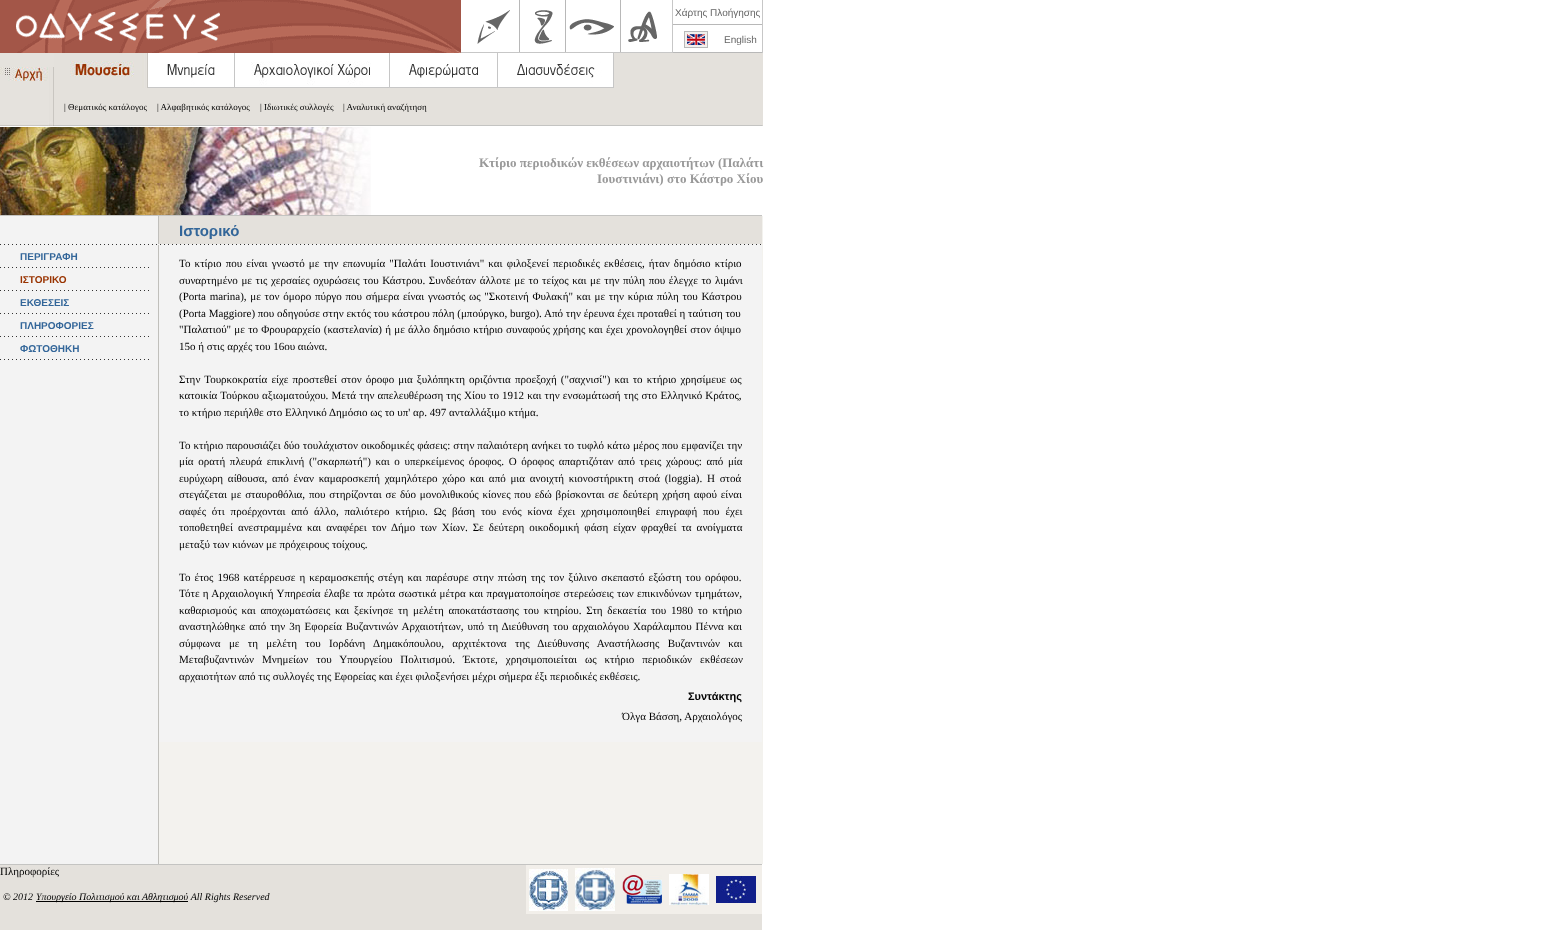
<svg xmlns="http://www.w3.org/2000/svg" width="1541" height="930">
<rect width="100%" height="100%" fill="#fff"/>
<image x="0" y="0" width="461" height="53" href="media/1.png"/>
<image x="461" y="0" width="212" height="53" href="media/2.png"/>
<text x="675" y="16" style="font-family:Liberation Sans;font-size:10px;fill:#666">Χάρτης Πλοήγησης</text>
<rect x="673" y="24" width="89" height="1" fill="#b8b8b8"/>
<image x="684" y="31" width="24" height="17" href="media/3.png"/>
<text x="724" y="43" style="font-family:Liberation Sans;font-size:10px;fill:#666">English</text>
<rect x="673" y="52" width="89" height="1" fill="#b8b8b8"/>
<rect x="762" width="1" height="53" fill="#c7c7c7"/>
<rect y="53" width="54" height="14" fill="#e5e2dd"/>
<image x="0" y="67" width="54" height="14" href="media/4.png"/>
<image x="0" y="81" width="54" height="45" href="media/5.png"/>
<image x="54" y="53" width="94" height="35" href="media/6.png"/>
<image x="148" y="53" width="87" height="35" href="media/7.png"/>
<image x="235" y="53" width="155" height="35" href="media/8.png"/>
<image x="390" y="53" width="108" height="35" href="media/9.png"/>
<image x="498" y="53" width="116" height="35" href="media/10.png"/>
<rect x="614" y="53" width="149" height="35" fill="#e4e1dc"/>
<rect x="54" y="88" width="709" height="37" fill="#e4e1dc"/>
<text x="64" y="110" style="font-family:Liberation Serif;font-size:9px;fill:#000">| Θεματικός κατάλογος</text>
<text x="157" y="110" style="font-family:Liberation Serif;font-size:9px;fill:#000">| Αλφαβητικός κατάλογος</text>
<text x="260" y="110" style="font-family:Liberation Serif;font-size:9px;fill:#000">| Ιδιωτικές συλλογές</text>
<text x="343" y="110" style="font-family:Liberation Serif;font-size:9px;fill:#000">| Αναλυτική αναζήτηση</text>
<rect x="762" y="125" width="1" height="1" fill="#d2d1cd"/>
<rect x="54" y="125" width="708" height="1" fill="#c4c4c2"/>
<image x="0" y="126" width="371" height="89" href="media/11.png"/>
<text x="479" y="167" style="font-family:Liberation Serif;font-size:13px;font-weight:bold;fill:#999">Κτίριο περιοδικών εκθέσεων αρχαιοτήτων (Παλάτι</text>
<text x="597" y="183" style="font-family:Liberation Serif;font-size:13px;font-weight:bold;fill:#999">Ιουστινιάνι) στο Κάστρο Χίου</text>
<rect y="215" width="762" height="1" fill="#c4c4c2"/>
<rect x="159" y="216" width="604" height="648" fill="#f3f2ee"/>
<rect y="216" width="158" height="28" fill="#f3f3f3"/>
<rect x="158" y="216" width="1" height="28" fill="#c0bfbb"/>
<rect x="159" y="216" width="603" height="28" fill="#e4e1dc"/>
<text x="179" y="236" style="font-family:Liberation Sans;font-size:15px;font-weight:bold;fill:#369">Ιστορικό</text>
<rect y="244" width="762" height="1" fill="#f3f3f3"/>
<image x="0" y="244" width="761" height="1" href="media/12.png"/>
<rect y="245" width="158" height="619" fill="#f3f3f3"/>
<text x="20" y="260" style="font-family:Liberation Sans;font-size:10px;font-weight:bold;fill:#369">ΠΕΡΙΓΡΑΦΗ</text>
<image x="0" y="267" width="149" height="1" href="media/13.png"/>
<text x="20" y="283" style="font-family:Liberation Sans;font-size:10px;font-weight:bold;fill:#930">ΙΣΤΟΡΙΚΟ</text>
<image x="0" y="290" width="149" height="1" href="media/13.png"/>
<text x="20" y="306" style="font-family:Liberation Sans;font-size:10px;font-weight:bold;fill:#369">ΕΚΘΕΣΕΙΣ</text>
<image x="0" y="313" width="149" height="1" href="media/13.png"/>
<text x="20" y="329" style="font-family:Liberation Sans;font-size:10px;font-weight:bold;fill:#369">ΠΛΗΡΟΦΟΡΙΕΣ</text>
<image x="0" y="336" width="149" height="1" href="media/13.png"/>
<text x="20" y="352" style="font-family:Liberation Sans;font-size:10px;font-weight:bold;fill:#369">ΦΩΤΟΘΗΚΗ</text>
<image x="0" y="359" width="149" height="1" href="media/13.png"/>
<rect x="158" y="245" width="1" height="619" fill="#c0bfbb"/>
<rect x="159" y="245" width="603" height="497" fill="#f3f3f3"/>
<text x="179" y="267" word-spacing="1.4" style="font-family:Liberation Serif;font-size:11px;fill:#000">Το κτίριο που είναι γνωστό με την επωνυμία "Παλάτι Ιουστινιάνι" και φιλοξενεί περιοδικές εκθέσεις, ήταν δημόσιο κτίριο</text>
<text x="179" y="284" word-spacing="0.9" style="font-family:Liberation Serif;font-size:11px;fill:#000">συναρτημένο με τις χερσαίες οχυρώσεις του Κάστρου. Συνδεόταν άλλοτε με το τείχος και με την πύλη που έλεγχε το λιμάνι</text>
<text x="179" y="300" word-spacing="1" style="font-family:Liberation Serif;font-size:11px;fill:#000">(Porta marina), με τον όμορο πύργο που σήμερα είναι γνωστός ως "Σκοτεινή Φυλακή" και με την κύρια πύλη του Κάστρου</text>
<text x="179" y="317" style="font-family:Liberation Serif;font-size:11px;fill:#000">(Porta Maggiore) που οδηγούσε στην εκτός του κάστρου πόλη (μπούργκο, burgo). Από την έρευνα έχει προταθεί η ταύτιση του</text>
<text x="179" y="333" word-spacing="0.5" style="font-family:Liberation Serif;font-size:11px;fill:#000">"Παλατιού" με το Φρουραρχείο (καστελανία) ή με άλλο δημόσιο κτήριο συναφούς χρήσης και έχει χρονολογηθεί στον όψιμο</text>
<text x="179" y="350" style="font-family:Liberation Serif;font-size:11px;fill:#000">15ο ή στις αρχές του 16ου αιώνα.</text>
<text x="179" y="383" word-spacing="1.3" style="font-family:Liberation Serif;font-size:11px;fill:#000">Στην Τουρκοκρατία είχε προστεθεί στον όροφο μια ξυλόπηκτη οριζόντια προεξοχή ("σαχνισί") και το κτήριο χρησίμευε ως</text>
<text x="179" y="399" word-spacing="0.4" style="font-family:Liberation Serif;font-size:11px;fill:#000">κατοικία Τούρκου αξιωματούχου. Μετά την απελευθέρωση της Χίου το 1912 και την ενσωμάτωσή της στο Ελληνικό Κράτος,</text>
<text x="179" y="416" style="font-family:Liberation Serif;font-size:11px;fill:#000">το κτήριο περιήλθε στο Ελληνικό Δημόσιο ως το υπ' αρ. 497 ανταλλάξιμο κτήμα.</text>
<text x="179" y="449" word-spacing="0.25" style="font-family:Liberation Serif;font-size:11px;fill:#000">Το κτήριο παρουσιάζει δύο τουλάχιστον οικοδομικές φάσεις: στην παλαιότερη ανήκει το τυφλό κάτω μέρος που εμφανίζει την</text>
<text x="179" y="465" word-spacing="1.9" style="font-family:Liberation Serif;font-size:11px;fill:#000">μία ορατή πλευρά επικλινή ("σκαρπωτή") και ο υπερκείμενος όροφος. Ο όροφος απαρτιζόταν από τρεις χώρους: από μία</text>
<text x="179" y="482" word-spacing="2" style="font-family:Liberation Serif;font-size:11px;fill:#000">ευρύχωρη αίθουσα, από έναν καμαροσκεπή χαμηλότερο χώρο και από μια ανοιχτή κιονοστήρικτη στοά (loggia). Η στοά</text>
<text x="179" y="498" word-spacing="1.1" style="font-family:Liberation Serif;font-size:11px;fill:#000">στεγάζεται με σταυροθόλια, που στηρίζονται σε δύο μονολιθικούς κίονες που εδώ βρίσκονται σε δεύτερη χρήση αφού είναι</text>
<text x="179" y="515" word-spacing="3.1" style="font-family:Liberation Serif;font-size:11px;fill:#000">σαφές ότι προέρχονται από άλλο, παλιότερο κτήριο. Ως βάση του ενός κίονα έχει χρησιμοποιηθεί επιγραφή που έχει</text>
<text x="179" y="531" word-spacing="2.25" style="font-family:Liberation Serif;font-size:11px;fill:#000">τοποθετηθεί ανεστραμμένα και αναφέρει τον Δήμο των Χίων. Σε δεύτερη οικοδομική φάση είχαν φραχθεί τα ανοίγματα</text>
<text x="179" y="548" style="font-family:Liberation Serif;font-size:11px;fill:#000">μεταξύ των κιόνων με πρόχειρους τοίχους.</text>
<text x="179" y="581" word-spacing="1.3" style="font-family:Liberation Serif;font-size:11px;fill:#000">Το έτος 1968 κατέρρευσε η κεραμοσκεπής στέγη και παρέσυρε στην πτώση της τον ξύλινο σκεπαστό εξώστη του ορόφου.</text>
<text x="179" y="597" word-spacing="0.6" style="font-family:Liberation Serif;font-size:11px;fill:#000">Τότε η Αρχαιολογική Υπηρεσία έλαβε τα πρώτα σωστικά μέτρα και πραγματοποίησε στερεώσεις των επικινδύνων τμημάτων,</text>
<text x="179" y="614" word-spacing="2" style="font-family:Liberation Serif;font-size:11px;fill:#000">καθαρισμούς και αποχωματώσεις και ξεκίνησε τη μελέτη αποκατάστασης του κτηρίου. Στη δεκαετία του 1980 το κτήριο</text>
<text x="179" y="630" word-spacing="1.25" style="font-family:Liberation Serif;font-size:11px;fill:#000">αναστηλώθηκε από την 3η Εφορεία Βυζαντινών Αρχαιοτήτων, υπό τη Διεύθυνση του αρχαιολόγου Χαράλαμπου Πέννα και</text>
<text x="179" y="647" word-spacing="5.6" style="font-family:Liberation Serif;font-size:11px;fill:#000">σύμφωνα με τη μελέτη του Ιορδάνη Δημακόπουλου, αρχιτέκτονα της Διεύθυνσης Αναστήλωσης Βυζαντινών και</text>
<text x="179" y="663" word-spacing="5.25" style="font-family:Liberation Serif;font-size:11px;fill:#000">Μεταβυζαντινών Μνημείων του Υπουργείου Πολιτισμού. Έκτοτε, χρησιμοποιείται ως κτήριο περιοδικών εκθέσεων</text>
<text x="179" y="680" style="font-family:Liberation Serif;font-size:11px;fill:#000">αρχαιοτήτων από τις συλλογές της Εφορείας και έχει φιλοξενήσει μέχρι σήμερα έξι περιοδικές εκθέσεις.</text>
<text x="688" y="700" style="font-family:Liberation Sans;font-size:11px;font-weight:bold;fill:#000">Συντάκτης</text>
<text x="622" y="720" style="font-family:Liberation Serif;font-size:11px;fill:#000">Όλγα Βάσση, Αρχαιολόγος</text>
<rect y="864" width="762" height="1" fill="#c4c4c2"/>
<rect y="865" width="762" height="65" fill="#e4e1dc"/>
<text x="0" y="875" style="font-family:Liberation Serif;font-size:11px;fill:#000">Πληροφορίες</text>
<rect x="526" y="865" width="236" height="49" fill="#f2efea"/>
<image x="529" y="869" width="39" height="42" href="media/14.png"/>
<image x="575" y="868" width="40" height="43" href="media/15.png"/>
<image x="622" y="875" width="40" height="29" href="media/16.png"/>
<image x="669" y="874" width="40" height="31" href="media/17.png"/>
<image x="716" y="876" width="40" height="27" href="media/18.png"/>
<text x="3" y="900" style="font-family:Liberation Serif;font-size:10px;font-style:italic;fill:#000">© 2012</text>
<rect x="36" y="901" width="152" height="1" fill="#000"/>
<text x="36" y="900" style="font-family:Liberation Serif;font-size:10px;font-style:italic;fill:#000">Υπουργείο Πολιτισμού και Αθλητισμού All Rights Reserved</text>
</svg>
